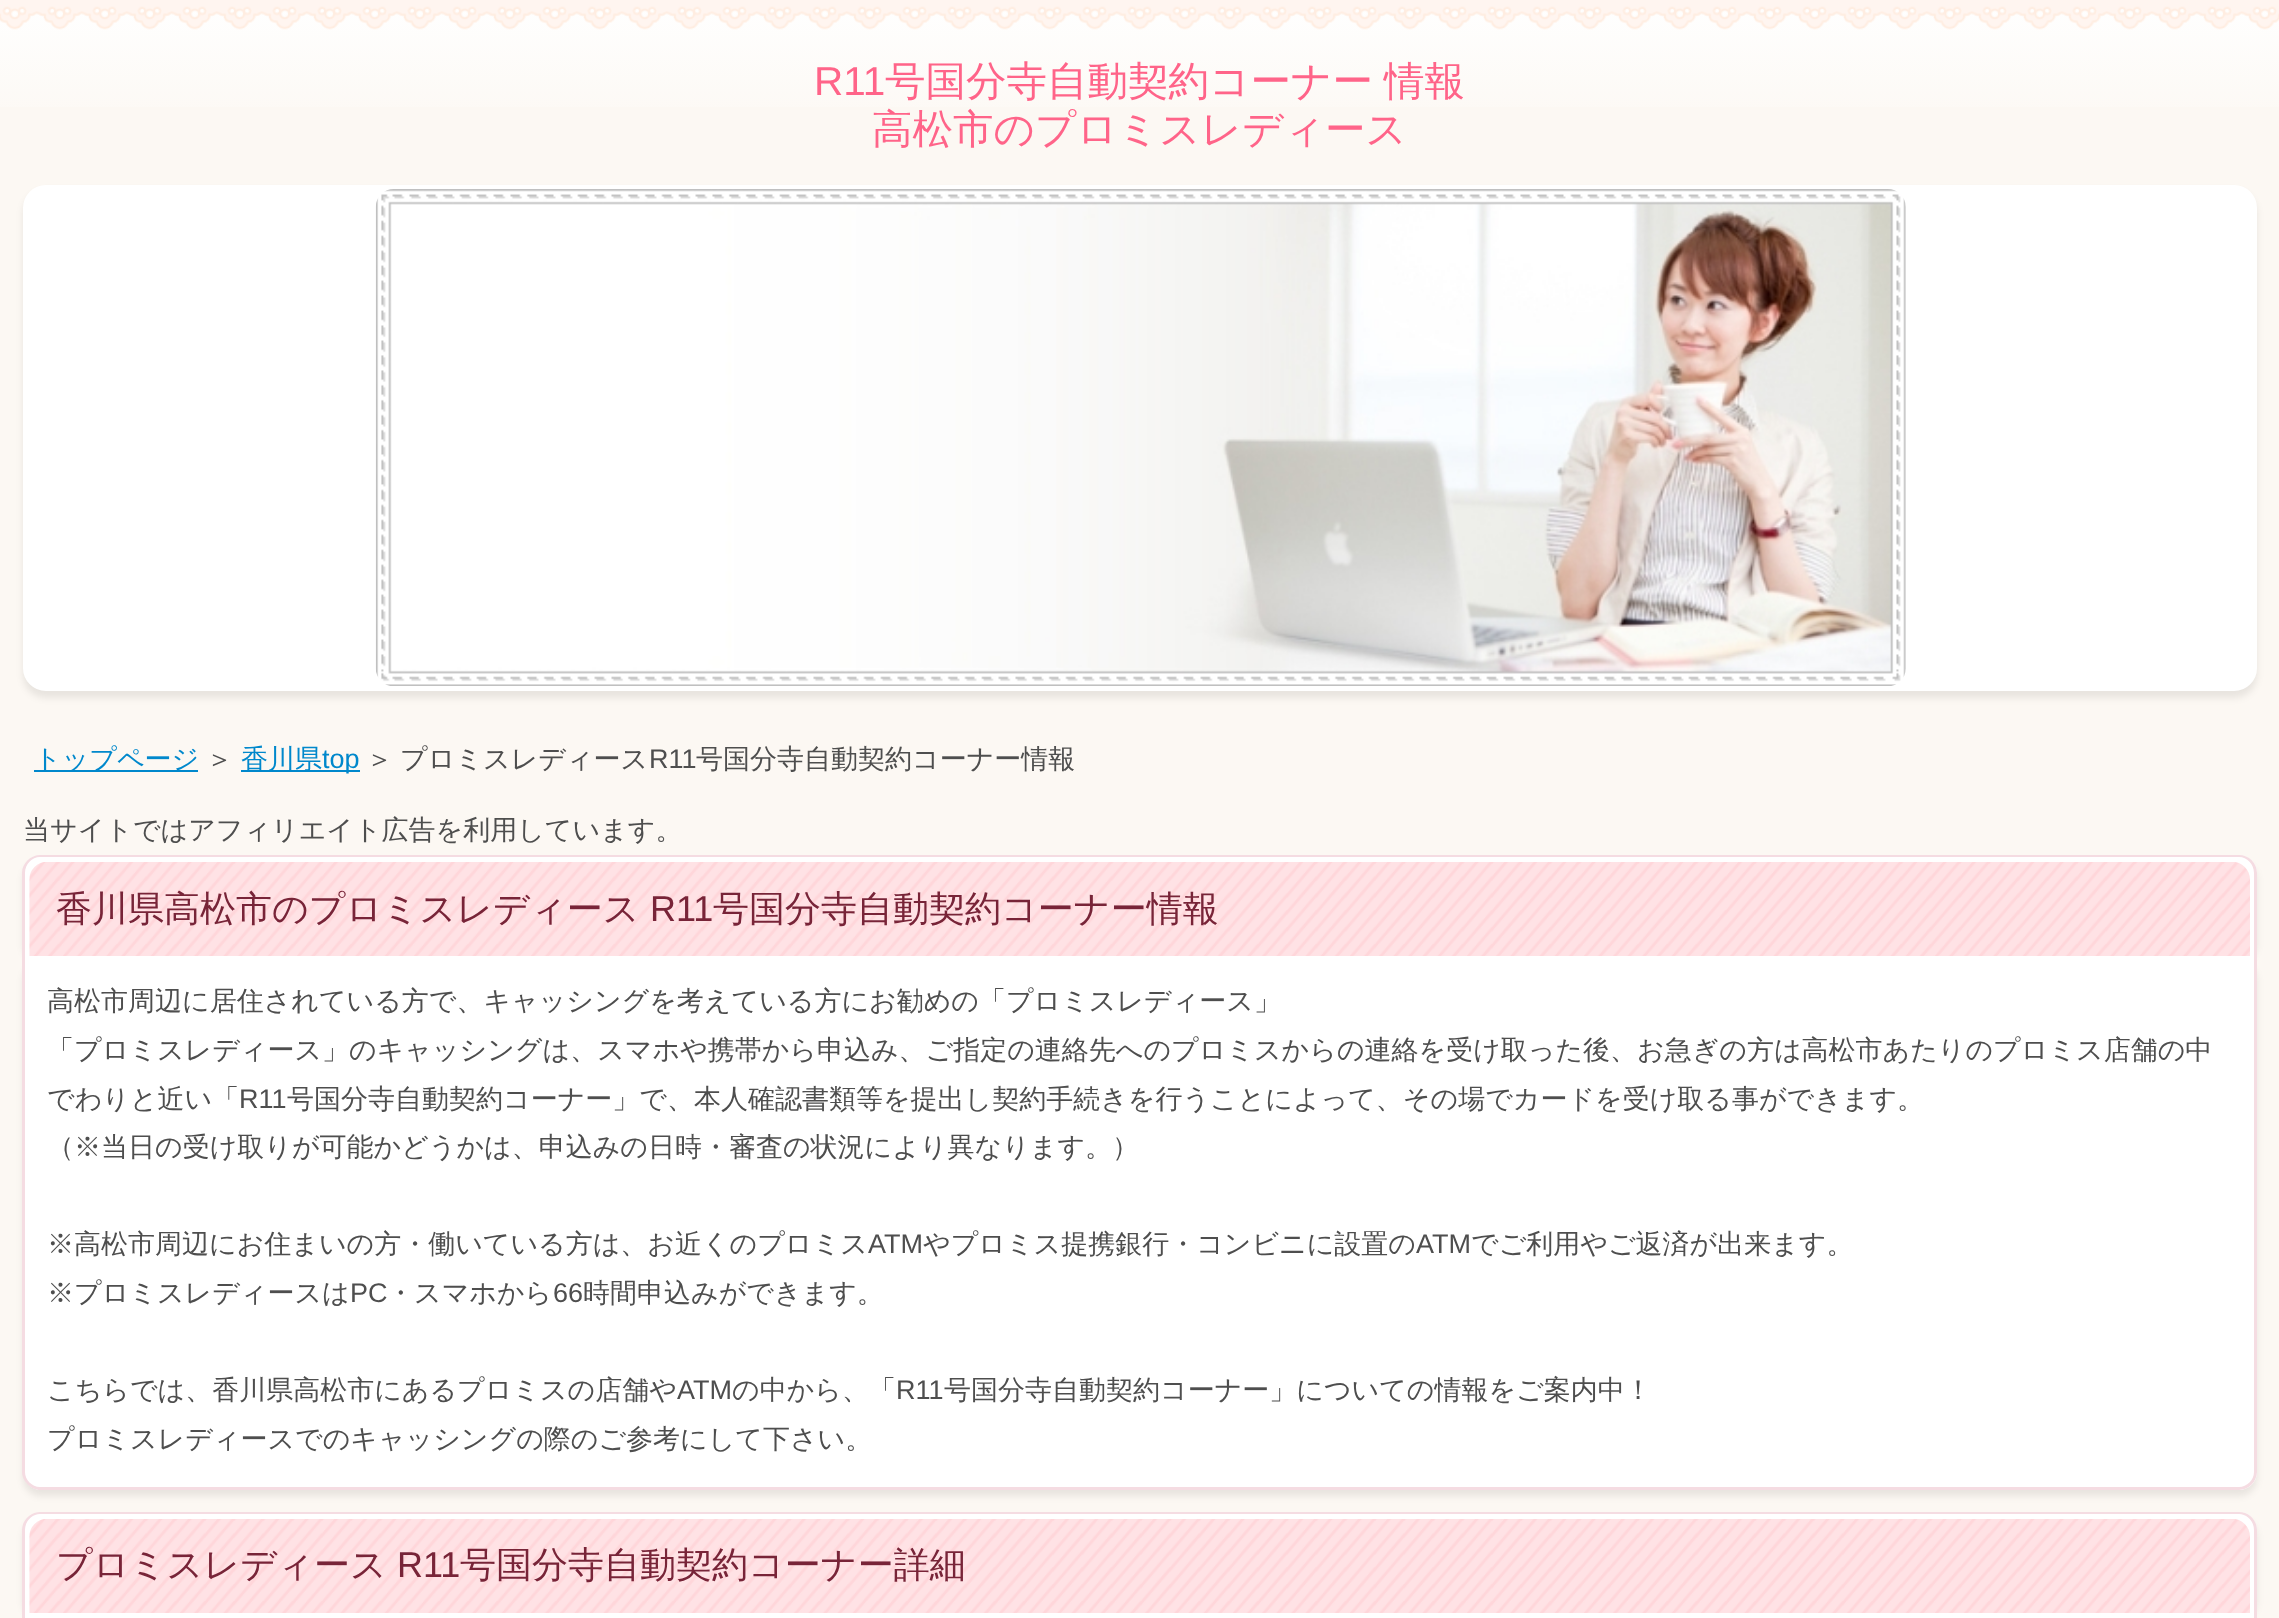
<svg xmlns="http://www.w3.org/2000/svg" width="2279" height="1618">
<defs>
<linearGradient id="g1" gradientUnits="userSpaceOnUse" x1="1140" y1="0" x2="1140" y2="135"><stop offset="0" stop-color="#fff"/><stop offset="1" stop-color="#fcf8f3"/></linearGradient>
</defs>
<rect width="100%" height="100%" fill="#fcf8f3"/>
<rect y="8" width="2279" height="99" fill="url(#g1)"/>
<image x="0" y="0" width="2279" height="30" href="media/1.png"/>
<text x="814" y="95" style="font-family:Liberation Sans;font-size:40.5px;fill:#ff6489">R11</text>
<text x="885" y="95" word-spacing="-1" style="font-family:WenQuanYi Zen Hei;font-size:40.5px;font-weight:500;fill:#ff6489">号国分寺自動契約コーナー 情報</text>
<text x="872" y="143" style="font-family:WenQuanYi Zen Hei;font-size:40.5px;font-weight:500;fill:#ff6489">高松市のプロミスレディース</text>
<rect x="23" y="191" width="2234" height="507" rx="23" fill="#00000014" filter="blur(3.5px)"/>
<rect x="25.5" y="187.5" width="2229" height="501" rx="20.5" fill="#fff" stroke="#fff" stroke-width="5"/>
<image x="375" y="189" width="1531" height="497" href="media/2.png"/>
<rect x="34" y="770" width="164" height="2" fill="#08c"/>
<text x="34" y="768" style="font-family:WenQuanYi Zen Hei;font-size:27px;font-weight:500;fill:#08c">トップページ</text>
<text x="206" y="768" style="font-family:WenQuanYi Zen Hei;font-size:27px;font-weight:500;fill:#4e4e4e">＞</text>
<rect x="241" y="770" width="119" height="2" fill="#08c"/>
<text x="241" y="768" style="font-family:WenQuanYi Zen Hei;font-size:27px;font-weight:500;fill:#08c">香川県</text>
<text x="322" y="768" style="font-family:Liberation Sans;font-size:27px;fill:#08c">top</text>
<text x="366" y="768" word-spacing="-1" style="font-family:WenQuanYi Zen Hei;font-size:27px;font-weight:500;fill:#4e4e4e">＞ プロミスレディース</text>
<text x="649" y="768" style="font-family:Liberation Sans;font-size:27px;fill:#4e4e4e">R11</text>
<text x="696" y="768" style="font-family:WenQuanYi Zen Hei;font-size:27px;font-weight:500;fill:#4e4e4e">号国分寺自動契約コーナー情報</text>
<text x="23" y="839" style="font-family:WenQuanYi Zen Hei;font-size:27px;font-weight:500;fill:#4e4e4e">当サイトではアフィリエイト広告を利用しています。</text>
<rect x="23" y="862" width="2234" height="101" rx="18" fill="#00000014" filter="blur(3.5px)"/>
<path d="M41 855h2198c10 0 18 8 18 18v83h-2234v-83c0-10 8-18 18-18z" fill="#fff"/>
<path d="M40 855h2199c10 0 18 8 18 18v83h-2235v-83c0-10 9-18 18-18zm0 2h2199c8 0 15 7 15 16v83h-2229v-83c0-9 7-16 15-16z" fill="#f5dce2" fill-rule="evenodd"/>
<image x="29" y="862" width="2221" height="94" href="media/3.png"/>
<text x="56" y="921" style="font-family:WenQuanYi Zen Hei;font-size:36px;font-weight:500;fill:#782438">香川県高松市のプロミスレディース</text>
<text x="650" y="921" style="font-family:Liberation Sans;font-size:36px;fill:#782438">R11</text>
<text x="713" y="921" style="font-family:WenQuanYi Zen Hei;font-size:36px;font-weight:500;fill:#782438">号国分寺自動契約コーナー情報</text>
<rect x="23" y="963" width="2234" height="533" rx="18" fill="#00000014" filter="blur(3.5px)"/>
<path d="M23 956h2234v516c0 10-8 18-18 18h-2198c-10 0-18-8-18-18z" fill="#fff"/>
<path d="M22 956h2235v516c0 9-8 18-18 18h-2199c-9 0-18-9-18-18zm3 0h2229v516c0 8-7 15-15 15h-2199c-8 0-15-7-15-15z" fill="#f5dce2" fill-rule="evenodd"/>
<text x="47" y="1010" style="font-family:WenQuanYi Zen Hei;font-size:27px;font-weight:500;fill:#4e4e4e">高松市周辺に居住されている方で、キャッシングを考えている方にお勧めの「プロミスレディース」</text>
<text x="47" y="1059" style="font-family:WenQuanYi Zen Hei;font-size:27px;font-weight:500;fill:#4e4e4e">「プロミスレディース」のキャッシングは、スマホや携帯から申込み、ご指定の連絡先へのプロミスからの連絡を受け取った後、お急ぎの方は高松市あたりのプロミス店舗の中</text>
<text x="47" y="1108" style="font-family:WenQuanYi Zen Hei;font-size:27px;font-weight:500;fill:#4e4e4e">でわりと近い「</text>
<text x="239" y="1108" style="font-family:Liberation Sans;font-size:27px;fill:#4e4e4e">R11</text>
<text x="287" y="1108" style="font-family:WenQuanYi Zen Hei;font-size:27px;font-weight:500;fill:#4e4e4e">号国分寺自動契約コーナー」で、本人確認書類等を提出し契約手続きを行うことによって、その場でカードを受け取る事ができます。</text>
<text x="47" y="1156" style="font-family:WenQuanYi Zen Hei;font-size:27px;font-weight:500;fill:#4e4e4e">（※当日の受け取りが可能かどうかは、申込みの日時・審査の状況により異なります。）</text>
<text x="47" y="1253" style="font-family:WenQuanYi Zen Hei;font-size:27px;font-weight:500;fill:#4e4e4e">※高松市周辺にお住まいの方・働いている方は、お近くのプロミス</text>
<text x="868" y="1253" style="font-family:Liberation Sans;font-size:27px;fill:#4e4e4e">ATM</text>
<text x="923" y="1253" style="font-family:WenQuanYi Zen Hei;font-size:27px;font-weight:500;fill:#4e4e4e">やプロミス提携銀行・コンビニに設置の</text>
<text x="1416" y="1253" style="font-family:Liberation Sans;font-size:27px;fill:#4e4e4e">ATM</text>
<text x="1471" y="1253" style="font-family:WenQuanYi Zen Hei;font-size:27px;font-weight:500;fill:#4e4e4e">でご利用やご返済が出来ます。</text>
<text x="47" y="1302" style="font-family:WenQuanYi Zen Hei;font-size:27px;font-weight:500;fill:#4e4e4e">※プロミスレディースは</text>
<text x="350" y="1302" style="font-family:Liberation Sans;font-size:27px;fill:#4e4e4e">PC</text>
<text x="387" y="1302" style="font-family:WenQuanYi Zen Hei;font-size:27px;font-weight:500;fill:#4e4e4e">・スマホから</text>
<text x="553" y="1302" style="font-family:Liberation Sans;font-size:27px;fill:#4e4e4e">66</text>
<text x="583" y="1302" style="font-family:WenQuanYi Zen Hei;font-size:27px;font-weight:500;fill:#4e4e4e">時間申込みができます。</text>
<text x="47" y="1399" style="font-family:WenQuanYi Zen Hei;font-size:27px;font-weight:500;fill:#4e4e4e">こちらでは、香川県高松市にあるプロミスの店舗や</text>
<text x="677" y="1399" style="font-family:Liberation Sans;font-size:27px;fill:#4e4e4e">ATM</text>
<text x="732" y="1399" style="font-family:WenQuanYi Zen Hei;font-size:27px;font-weight:500;fill:#4e4e4e">の中から、「</text>
<text x="896" y="1399" style="font-family:Liberation Sans;font-size:27px;fill:#4e4e4e">R11</text>
<text x="944" y="1399" style="font-family:WenQuanYi Zen Hei;font-size:27px;font-weight:500;fill:#4e4e4e">号国分寺自動契約コーナー」についての情報をご案内中！</text>
<text x="47" y="1448" style="font-family:WenQuanYi Zen Hei;font-size:27px;font-weight:500;fill:#4e4e4e">プロミスレディースでのキャッシングの際のご参考にして下さい。</text>
<rect x="23" y="1519" width="2234" height="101" rx="18" fill="#00000014" filter="blur(3.5px)"/>
<path d="M41 1512h2198c10 0 18 8 18 18v83h-2234v-83c0-10 8-18 18-18z" fill="#fff"/>
<path d="M40 1512h2199c10 0 18 8 18 18v83h-2235v-83c0-10 9-18 18-18zm0 2h2199c8 0 15 7 15 16v83h-2229v-83c0-9 7-16 15-16z" fill="#f5dce2" fill-rule="evenodd"/>
<image x="29" y="1519" width="2221" height="94" href="media/4.png"/>
<text x="56" y="1577" style="font-family:WenQuanYi Zen Hei;font-size:36px;font-weight:500;fill:#782438">プロミスレディース</text>
<text x="397" y="1577" style="font-family:Liberation Sans;font-size:36px;fill:#782438">R11</text>
<text x="460" y="1577" style="font-family:WenQuanYi Zen Hei;font-size:36px;font-weight:500;fill:#782438">号国分寺自動契約コーナー詳細</text>
<rect x="23" y="1613" width="2234" height="5" fill="#fff"/>
<path d="M22 1613h2235v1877c0 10-8 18-18 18h-2199c-9 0-18-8-18-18zm3 0h2229v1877c0 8-7 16-15 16h-2199c-8 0-15-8-15-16z" fill="#f5dce2" fill-rule="evenodd"/>
</svg>
